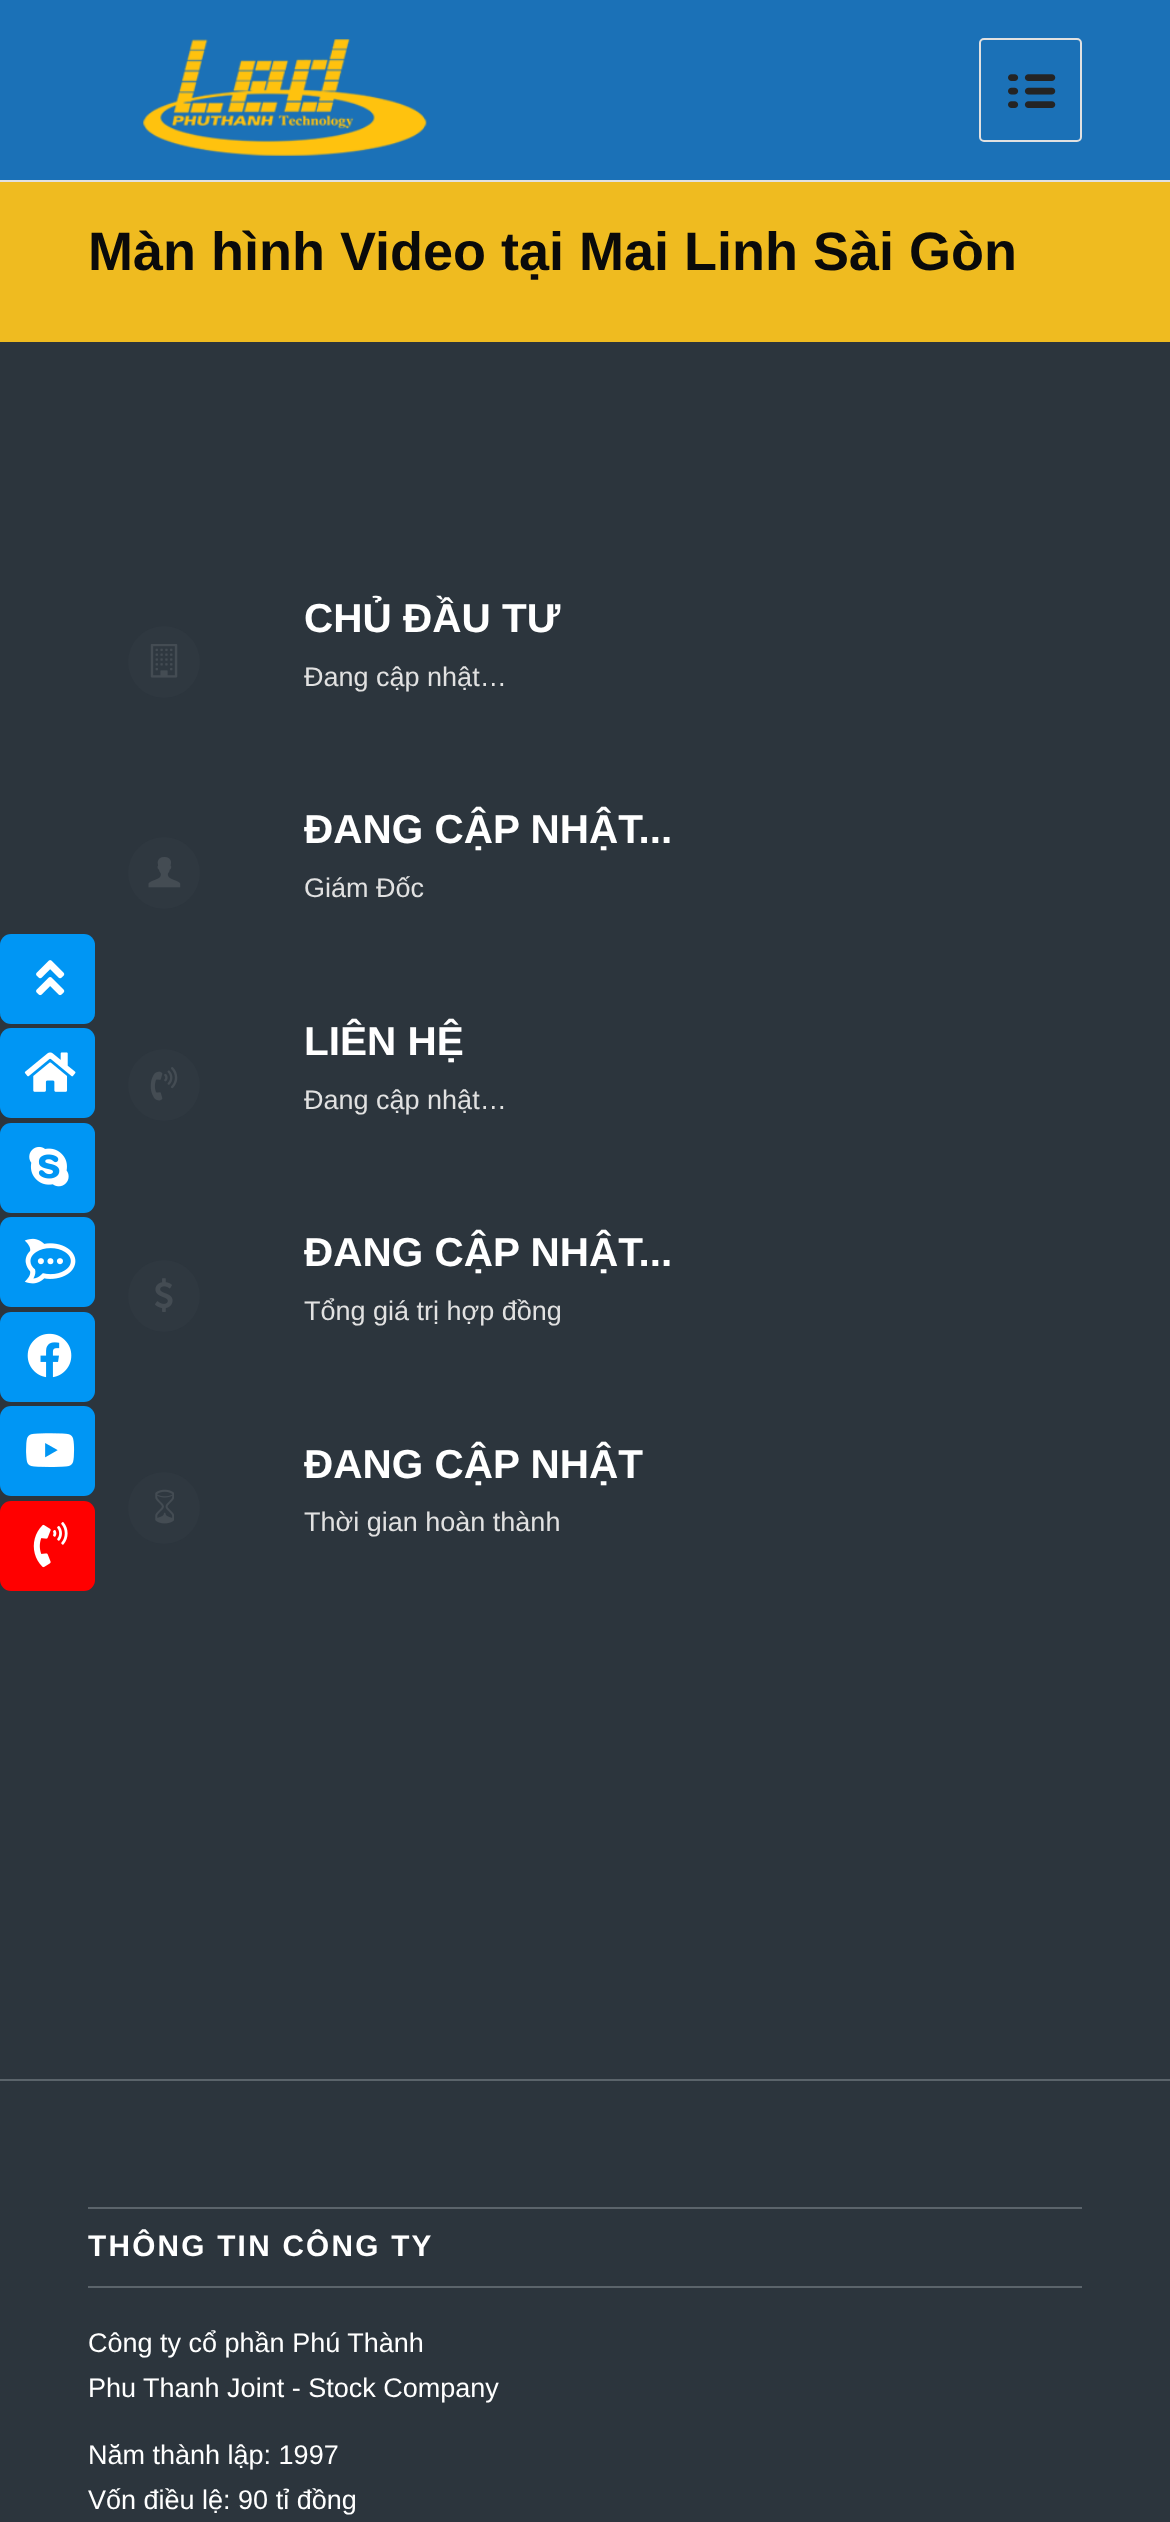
<svg xmlns="http://www.w3.org/2000/svg" width="1170" height="2522">
<defs>
<clipPath id="clip1"><rect x="304" y="801" width="778" height="144"/></clipPath>
<clipPath id="clip2"><rect x="304" y="1224" width="778" height="144"/></clipPath>
<clipPath id="clip3"><rect x="304" y="1436" width="778" height="144"/></clipPath>
</defs>
<rect width="100%" height="100%" fill="#efbb20"/>
<rect y="342" width="1170" height="1737" fill="#2c353d"/>
<rect y="934" width="90" height="90" rx="11" fill="#0096f4"/>
<rect x="5" y="934" width="90" height="90" rx="11" fill="#0096f4"/>
<image x="36" y="960" width="29" height="36" href="media/1.png"/>
<rect y="1028" width="90" height="90" rx="11" fill="#0096f4"/>
<rect x="5" y="1028" width="90" height="90" rx="11" fill="#0096f4"/>
<image x="24" y="1052" width="52" height="40" href="media/2.png"/>
<rect y="1123" width="90" height="90" rx="11" fill="#0096f4"/>
<rect x="5" y="1123" width="90" height="90" rx="11" fill="#0096f4"/>
<image x="29" y="1146" width="40" height="41" href="media/3.png"/>
<rect y="1217" width="90" height="90" rx="11" fill="#0096f4"/>
<rect x="5" y="1217" width="90" height="90" rx="11" fill="#0096f4"/>
<image x="24" y="1238" width="52" height="46" href="media/4.png"/>
<rect y="1312" width="90" height="90" rx="11" fill="#0096f4"/>
<rect x="5" y="1312" width="90" height="90" rx="11" fill="#0096f4"/>
<image x="27" y="1333" width="45" height="45" href="media/5.png"/>
<rect y="1406" width="90" height="90" rx="11" fill="#0096f4"/>
<rect x="5" y="1406" width="90" height="90" rx="11" fill="#0096f4"/>
<image x="26" y="1433" width="49" height="34" href="media/6.png"/>
<rect y="1501" width="90" height="90" rx="11" fill="#f00"/>
<rect x="5" y="1501" width="90" height="90" rx="11" fill="#f00"/>
<image x="33" y="1522" width="35" height="46" href="media/7.png"/>
<rect width="1170" height="180" fill="#1b71b7"/>
<rect y="180" width="1170" height="2" fill="#e1e1e1"/>
<image x="143" y="39" width="284" height="117" href="media/8.png"/>
<rect x="980" y="39" width="101" height="102" rx="4" fill="none" stroke="#e1e1e1" stroke-width="2"/>
<image x="1008" y="74" width="48" height="34" href="media/9.png"/>
<text x="88" y="270" style="font-family:Liberation Sans;font-size:54px;font-weight:bold;fill:#0a0a0a">Màn hình Video tại Mai Linh Sài Gòn</text>
<circle cx="164" cy="662" r="36" fill="#2f3840"/>
<image x="150" y="644" width="28" height="34" href="media/10.png"/>
<text x="304" y="632" style="font-family:Liberation Sans;font-size:40.5px;font-weight:bold;fill:#fff">CHỦ ĐẦU TƯ</text>
<text x="304" y="686" style="font-family:Liberation Sans;font-size:27px;fill:#e1e1e1">Đang cập nhật…</text>
<circle cx="164" cy="873" r="36" fill="#2f3840"/>
<image x="148" y="857" width="33" height="31" href="media/11.png"/>
<g clip-path="url(#clip1)">
<text x="304" y="843" style="font-family:Liberation Sans;font-size:40.5px;font-weight:bold;fill:#fff">ĐANG CẬP NHẬT...</text>
</g>
<text x="304" y="897" style="font-family:Liberation Sans;font-size:27px;fill:#e1e1e1">Giám Đốc</text>
<circle cx="164" cy="1085" r="36" fill="#2f3840"/>
<image x="150" y="1067" width="28" height="34" href="media/12.png"/>
<text x="304" y="1055" style="font-family:Liberation Sans;font-size:40.5px;font-weight:bold;fill:#fff">LIÊN HỆ</text>
<text x="304" y="1109" style="font-family:Liberation Sans;font-size:27px;fill:#e1e1e1">Đang cập nhật…</text>
<circle cx="164" cy="1296" r="36" fill="#2f3840"/>
<image x="155" y="1278" width="18" height="34" href="media/13.png"/>
<g clip-path="url(#clip2)">
<text x="304" y="1266" style="font-family:Liberation Sans;font-size:40.5px;font-weight:bold;fill:#fff">ĐANG CẬP NHẬT...</text>
</g>
<text x="304" y="1320" style="font-family:Liberation Sans;font-size:27px;fill:#e1e1e1">Tổng giá trị hợp đồng</text>
<circle cx="164" cy="1508" r="36" fill="#2f3840"/>
<image x="155" y="1489" width="19" height="35" href="media/14.png"/>
<g clip-path="url(#clip3)">
<text x="304" y="1478" style="font-family:Liberation Sans;font-size:40.5px;font-weight:bold;fill:#fff">ĐANG CẬP NHẬT</text>
</g>
<text x="304" y="1531" style="font-family:Liberation Sans;font-size:27px;fill:#e1e1e1">Thời gian hoàn thành</text>
<rect y="2081" width="1170" height="441" fill="#2c353d"/>
<rect y="2079" width="1170" height="2" fill="#5b646b"/>
<rect x="88" y="2207" width="994" height="2" fill="#5b646b"/>
<rect x="88" y="2286" width="994" height="2" fill="#5b646b"/>
<text x="88" y="2256" style="font-family:Liberation Sans;font-size:29.75px;font-weight:bold;letter-spacing:2.25px;fill:#fff">THÔNG TIN CÔNG TY</text>
<text x="88" y="2352" style="font-family:Liberation Sans;font-size:27px;fill:#fff">Công ty cổ phần Phú Thành</text>
<text x="88" y="2397" style="font-family:Liberation Sans;font-size:27px;fill:#fff">Phu Thanh Joint - Stock Company</text>
<text x="88" y="2464" style="font-family:Liberation Sans;font-size:27px;fill:#fff">Năm thành lập: 1997</text>
<text x="88" y="2509" style="font-family:Liberation Sans;font-size:27px;fill:#fff">Vốn điều lệ: 90 tỉ đồng</text>
</svg>
